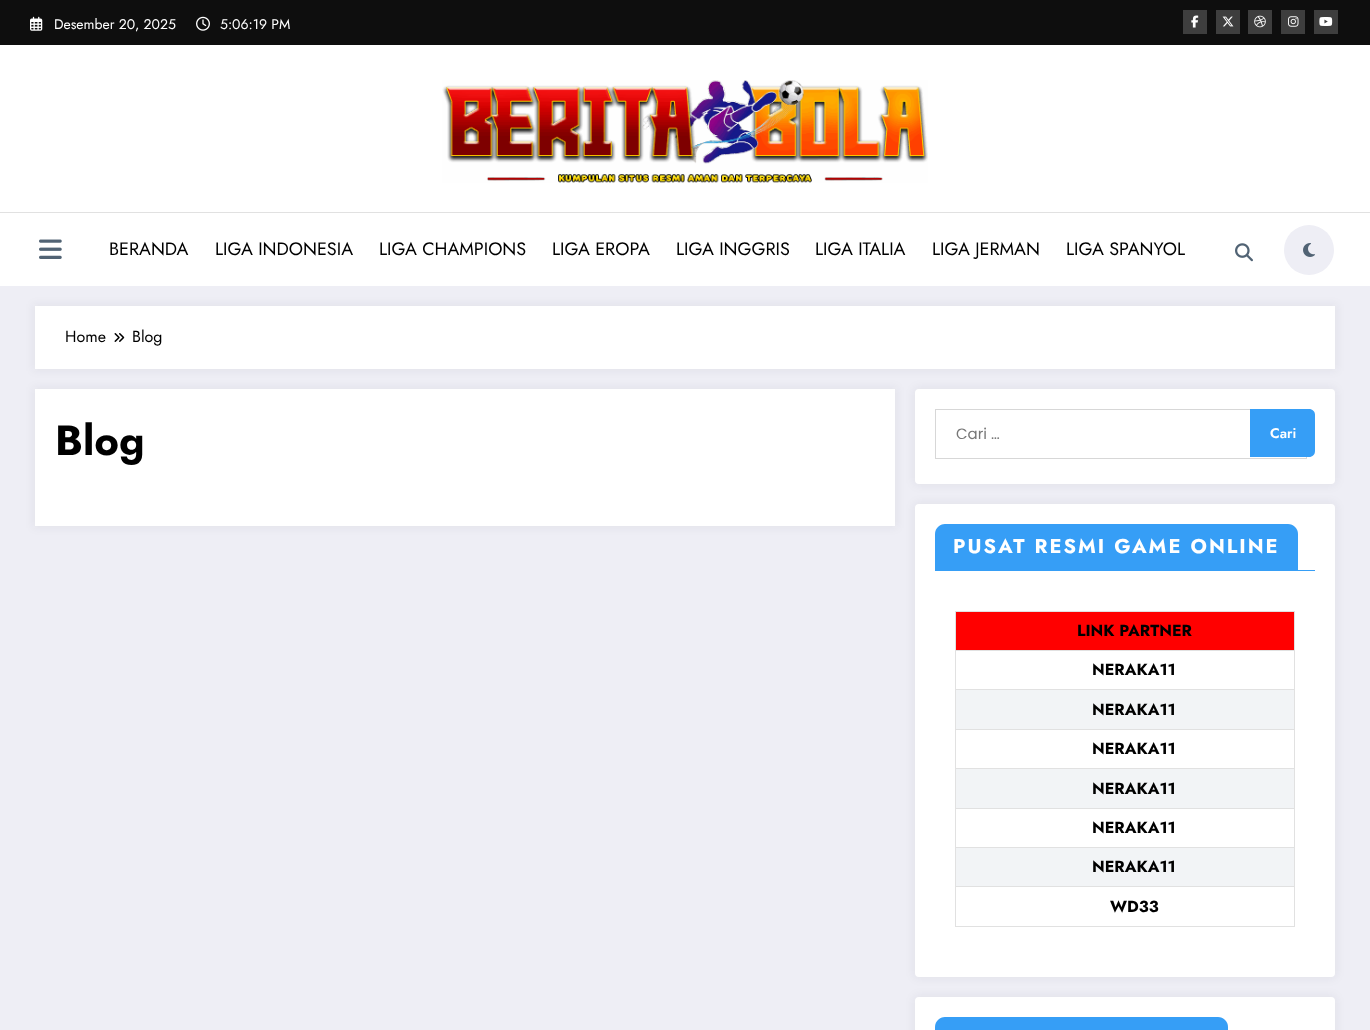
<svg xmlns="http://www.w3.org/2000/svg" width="1370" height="1030">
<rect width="100%" height="100%" fill="#eeeef5"/>
<rect width="1370" height="45" fill="#0e0e0e"/>
<image x="30" y="16" width="13" height="15" href="media/1.png"/>
<text x="54" y="29" style="font-family:Jost;font-size:14px;fill:#fff">Desember 20, 2025</text>
<image x="196" y="16" width="14" height="15" href="media/2.png"/>
<text x="220" y="29" style="font-family:Jost;font-size:14px;fill:#fff">5:06:19 PM</text>
<rect x="1183" y="10" width="24" height="24" fill="#3e3e3e"/>
<image x="1191" y="15" width="8" height="13" href="media/3.png"/>
<rect x="1216" y="10" width="24" height="24" fill="#3e3e3e"/>
<image x="1222" y="16" width="12" height="11" href="media/4.png"/>
<rect x="1248" y="10" width="24" height="24" fill="#3e3e3e"/>
<image x="1254" y="15" width="12" height="13" href="media/5.png"/>
<rect x="1281" y="10" width="24" height="24" fill="#3e3e3e"/>
<image x="1288" y="16" width="11" height="11" href="media/6.png"/>
<rect x="1314" y="10" width="24" height="24" fill="#3e3e3e"/>
<image x="1319" y="17" width="14" height="9" href="media/7.png"/>
<rect y="45" width="1370" height="241" fill="#fff"/>
<image x="442" y="80" width="486" height="103" href="media/8.png"/>
<rect y="212" width="1370" height="1" fill="#e1e1e1"/>
<image x="39" y="239" width="23" height="20" href="media/9.png"/>
<text x="109" y="255" style="font-family:Jost;font-size:18px;fill:#000">BERANDA</text>
<text x="215" y="255" style="font-family:Jost;font-size:18px;fill:#000">LIGA INDONESIA</text>
<text x="379" y="255" style="font-family:Jost;font-size:18px;fill:#000">LIGA CHAMPIONS</text>
<text x="552" y="255" style="font-family:Jost;font-size:18px;fill:#000">LIGA EROPA</text>
<text x="676" y="255" style="font-family:Jost;font-size:18px;fill:#000">LIGA INGGRIS</text>
<text x="815" y="255" style="font-family:Jost;font-size:18px;fill:#000">LIGA ITALIA</text>
<text x="932" y="255" style="font-family:Jost;font-size:18px;fill:#000">LIGA JERMAN</text>
<text x="1066" y="255" style="font-family:Jost;font-size:18px;fill:#000">LIGA SPANYOL</text>
<image x="1235" y="243" width="18" height="19" href="media/10.png"/>
<circle cx="1309" cy="250" r="25" fill="#eeeef5"/>
<image x="1303" y="243" width="12" height="14" href="media/11.png"/>
<rect x="33" y="304" width="1304" height="67" fill="#1717230d" filter="blur(4px)"/>
<rect x="35" y="306" width="1300" height="63" fill="#fff"/>
<text x="65" y="342" style="font-family:Jost;font-size:16px;fill:#000">Home</text>
<image x="114" y="333" width="11" height="9" href="media/12.png"/>
<text x="132" y="342" style="font-family:Jost;font-size:16px;fill:#000">Blog</text>
<rect x="33" y="387" width="864" height="141" fill="#1717230d" filter="blur(4px)"/>
<rect x="35" y="389" width="860" height="137" fill="#fff"/>
<text x="55" y="455" style="font-family:Jost;font-size:42px;font-weight:bold;fill:#000">Blog</text>
<rect x="913" y="387" width="424" height="99" rx="6" fill="#1717230d" filter="blur(4px)"/>
<rect x="915" y="389" width="420" height="95" rx="4" fill="#fff"/>
<rect x="935.5" y="409.5" width="371" height="49" fill="none" stroke="#d7d7d7"/>
<text x="956" y="439" style="font-family:Poppins;font-size:15px;fill:#777">Cari …</text>
<path d="M1250 409h59c3.5 0 6 2.5 6 6v36c0 3.5-2.5 6-6 6h-59z" fill="#369ef6"/>
<text x="1270" y="438" style="font-family:Jost;font-size:14px;font-weight:600;fill:#fff">Cari</text>
<rect x="913" y="502" width="424" height="477" rx="6" fill="#1717230d" filter="blur(4px)"/>
<rect x="915" y="504" width="420" height="473" rx="4" fill="#fff"/>
<rect x="935" y="570" width="380" height="1" fill="#369ef6"/>
<path d="M945 524h343c5.5 0 10 4.5 10 10v36h-363v-36c0-5.5 4.5-10 10-10z" fill="#369ef6"/>
<text x="953" y="553" style="font-family:Jost;font-size:20px;font-weight:bold;letter-spacing:2px;fill:#fff">PUSAT RESMI GAME ONLINE</text>
<rect x="955" y="611" width="340" height="1" fill="#e1e1e1"/>
<rect x="1294" y="611" width="1" height="275" fill="#e1e1e1"/>
<rect x="955" y="611" width="1" height="316" fill="#e1e1e1"/>
<rect x="956" y="612" width="338" height="38" fill="#f00"/>
<text x="1077" y="636" style="font-family:Jost;font-size:16px;font-weight:bold;fill:#000">LINK PARTNER</text>
<rect x="955" y="650" width="340" height="1" fill="#e1e1e1"/>
<text x="1092" y="675" style="font-family:Jost;font-size:16px;font-weight:bold;fill:#000">NERAKA11</text>
<rect x="956" y="690" width="338" height="39" fill="#f2f4f6"/>
<rect x="955" y="689" width="340" height="1" fill="#e1e1e1"/>
<text x="1092" y="715" style="font-family:Jost;font-size:16px;font-weight:bold;fill:#000">NERAKA11</text>
<rect x="955" y="729" width="340" height="1" fill="#e1e1e1"/>
<text x="1092" y="754" style="font-family:Jost;font-size:16px;font-weight:bold;fill:#000">NERAKA11</text>
<rect x="956" y="769" width="338" height="39" fill="#f2f4f6"/>
<rect x="955" y="768" width="340" height="1" fill="#e1e1e1"/>
<text x="1092" y="794" style="font-family:Jost;font-size:16px;font-weight:bold;fill:#000">NERAKA11</text>
<rect x="955" y="808" width="340" height="1" fill="#e1e1e1"/>
<text x="1092" y="833" style="font-family:Jost;font-size:16px;font-weight:bold;fill:#000">NERAKA11</text>
<rect x="956" y="848" width="338" height="38" fill="#f2f4f6"/>
<rect x="955" y="847" width="340" height="1" fill="#e1e1e1"/>
<text x="1092" y="872" style="font-family:Jost;font-size:16px;font-weight:bold;fill:#000">NERAKA11</text>
<rect x="955" y="886" width="340" height="1" fill="#e1e1e1"/>
<rect x="1294" y="886" width="1" height="41" fill="#e1e1e1"/>
<rect x="955" y="926" width="340" height="1" fill="#e1e1e1"/>
<text x="1110" y="912" style="font-family:Jost;font-size:16px;font-weight:bold;fill:#000">WD33</text>
<rect x="913" y="995" width="424" height="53" rx="6" fill="#1717230d" filter="blur(4px)"/>
<rect x="915" y="997" width="420" height="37" rx="4" fill="#fff"/>
<path d="M945 1017h273c5.5 0 10 4.5 10 10v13h-293v-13c0-5.5 4.5-10 10-10z" fill="#369ef6"/>
</svg>
